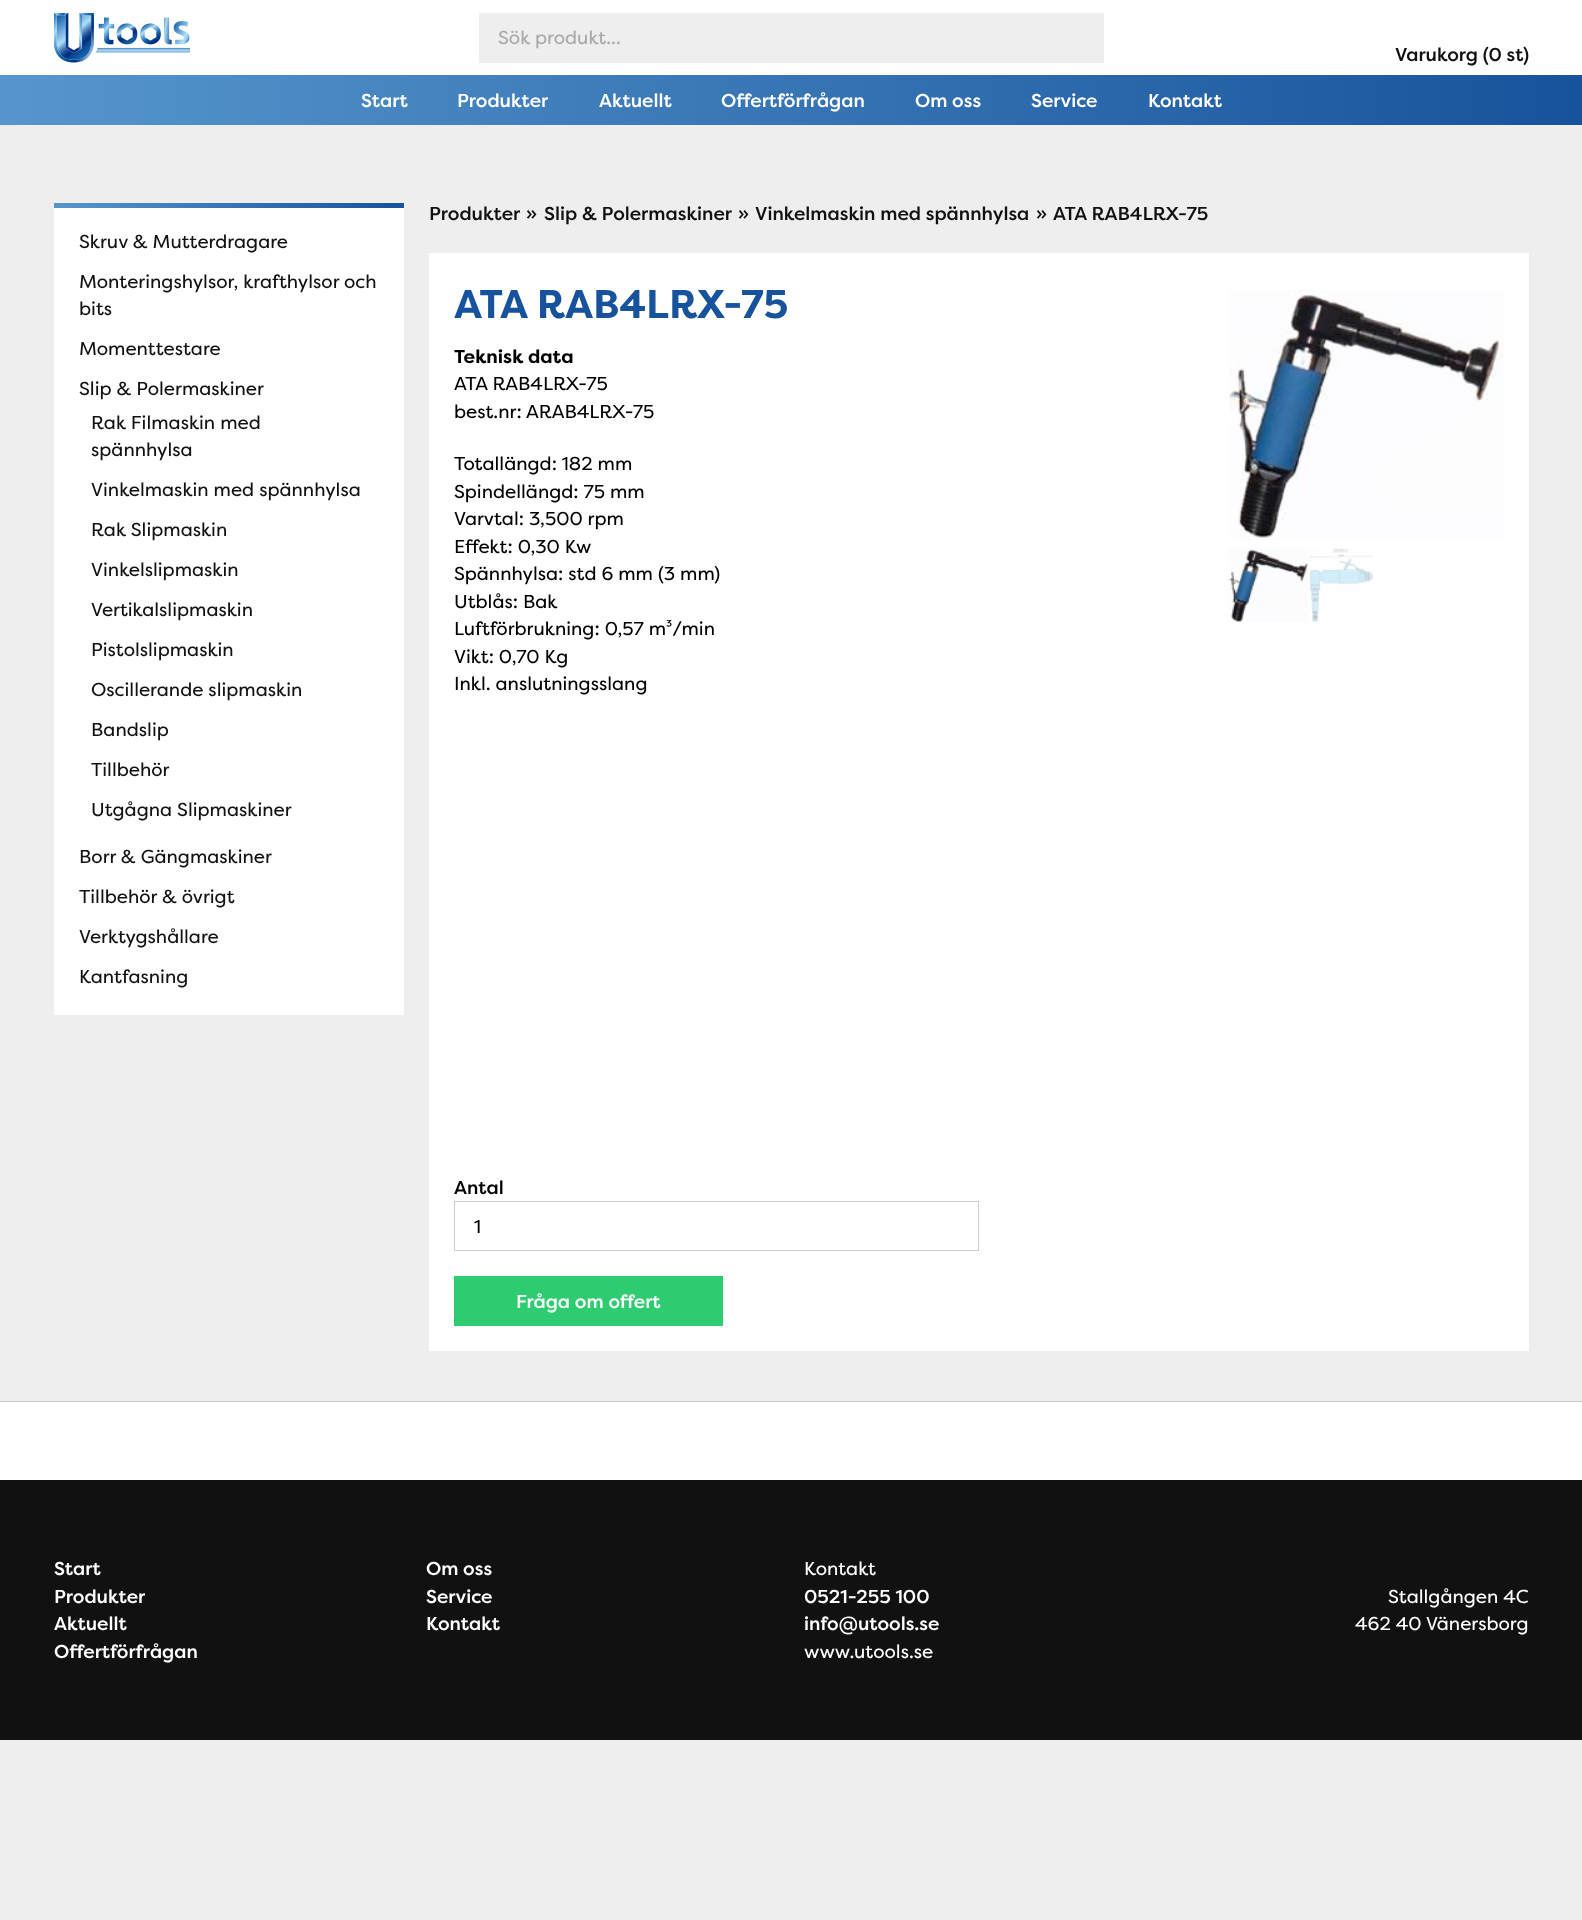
<svg xmlns="http://www.w3.org/2000/svg" width="1582" height="1920">
<defs>
<linearGradient id="g1" gradientUnits="userSpaceOnUse" x1="0" y1="100" x2="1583" y2="100"><stop offset="0" stop-color="#5696cc"/><stop offset="1" stop-color="#17539c"/></linearGradient>
<linearGradient id="g2" gradientUnits="userSpaceOnUse" x1="54" y1="205" x2="404" y2="205"><stop offset="0" stop-color="#5696cc"/><stop offset="1" stop-color="#17539c"/></linearGradient>
</defs>
<rect width="100%" height="100%" fill="#eee"/>
<rect width="1582" height="75" fill="#fff"/>
<image x="54" y="13" width="136" height="50" href="media/1.png"/>
<rect x="479" y="13" width="625" height="50" fill="#eee"/>
<text x="498" y="44" style="font-family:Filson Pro;font-size:18.75px;fill:#a9a9a9">Sök produkt...</text>
<text x="1395" y="61" style="font-family:Filson Pro;font-size:18.75px;font-weight:500;fill:#111">Varukorg (0 st)</text>
<rect y="75" width="1582" height="50" fill="url(#g1)"/>
<text x="361" y="107" style="font-family:Filson Pro;font-size:18.75px;font-weight:500;fill:#fff">Start</text>
<text x="457" y="107" style="font-family:Filson Pro;font-size:18.75px;font-weight:500;fill:#fff">Produkter</text>
<text x="599" y="107" style="font-family:Filson Pro;font-size:18.75px;font-weight:500;fill:#fff">Aktuellt</text>
<text x="721" y="107" style="font-family:Filson Pro;font-size:18.75px;font-weight:500;fill:#fff">Offertförfrågan</text>
<text x="915" y="107" style="font-family:Filson Pro;font-size:18.75px;font-weight:500;fill:#fff">Om oss</text>
<text x="1031" y="107" style="font-family:Filson Pro;font-size:18.75px;font-weight:500;fill:#fff">Service</text>
<text x="1148" y="107" style="font-family:Filson Pro;font-size:18.75px;font-weight:500;fill:#fff">Kontakt</text>
<text x="429" y="220" style="font-family:Filson Pro;font-size:18.75px;font-weight:500;fill:#111">Produkter</text>
<text x="526" y="220" style="font-family:Filson Pro;font-size:18.75px;font-weight:500;fill:#111">»</text>
<text x="544" y="220" style="font-family:Filson Pro;font-size:18.75px;font-weight:500;fill:#111">Slip &amp; Polermaskiner</text>
<text x="738" y="220" style="font-family:Filson Pro;font-size:18.75px;font-weight:500;fill:#111">»</text>
<text x="755" y="220" style="font-family:Filson Pro;font-size:18.75px;font-weight:500;fill:#111">Vinkelmaskin med spännhylsa</text>
<text x="1036" y="220" style="font-family:Filson Pro;font-size:18.75px;font-weight:500;fill:#111">»</text>
<text x="1053" y="220" style="font-family:Filson Pro;font-size:18.75px;font-weight:500;fill:#111">ATA RAB4LRX-75</text>
<rect x="54" y="208" width="350" height="807" fill="#fff"/>
<rect x="54" y="203" width="350" height="5" fill="url(#g2)"/>
<text x="79" y="248" style="font-family:Filson Pro;font-size:18.75px;fill:#111">Skruv &amp; Mutterdragare</text>
<text x="79" y="288" style="font-family:Filson Pro;font-size:18.75px;fill:#111">Monteringshylsor, krafthylsor och</text>
<text x="79" y="315" style="font-family:Filson Pro;font-size:18.75px;fill:#111">bits</text>
<text x="79" y="355" style="font-family:Filson Pro;font-size:18.75px;fill:#111">Momenttestare</text>
<text x="79" y="395" style="font-family:Filson Pro;font-size:18.75px;fill:#111">Slip &amp; Polermaskiner</text>
<text x="91" y="429" style="font-family:Filson Pro;font-size:18.75px;fill:#111">Rak Filmaskin med</text>
<text x="91" y="456" style="font-family:Filson Pro;font-size:18.75px;fill:#111">spännhylsa</text>
<text x="91" y="496" style="font-family:Filson Pro;font-size:18.75px;fill:#111">Vinkelmaskin med spännhylsa</text>
<text x="91" y="536" style="font-family:Filson Pro;font-size:18.75px;fill:#111">Rak Slipmaskin</text>
<text x="91" y="576" style="font-family:Filson Pro;font-size:18.75px;fill:#111">Vinkelslipmaskin</text>
<text x="91" y="616" style="font-family:Filson Pro;font-size:18.75px;fill:#111">Vertikalslipmaskin</text>
<text x="91" y="656" style="font-family:Filson Pro;font-size:18.75px;fill:#111">Pistolslipmaskin</text>
<text x="91" y="696" style="font-family:Filson Pro;font-size:18.75px;fill:#111">Oscillerande slipmaskin</text>
<text x="91" y="736" style="font-family:Filson Pro;font-size:18.75px;fill:#111">Bandslip</text>
<text x="91" y="776" style="font-family:Filson Pro;font-size:18.75px;fill:#111">Tillbehör</text>
<text x="91" y="816" style="font-family:Filson Pro;font-size:18.75px;fill:#111">Utgågna Slipmaskiner</text>
<text x="79" y="863" style="font-family:Filson Pro;font-size:18.75px;fill:#111">Borr &amp; Gängmaskiner</text>
<text x="79" y="903" style="font-family:Filson Pro;font-size:18.75px;fill:#111">Tillbehör &amp; övrigt</text>
<text x="79" y="943" style="font-family:Filson Pro;font-size:18.75px;fill:#111">Verktygshållare</text>
<text x="79" y="983" style="font-family:Filson Pro;font-size:18.75px;fill:#111">Kantfasning</text>
<rect x="429" y="253" width="1100" height="1098" fill="#fff"/>
<text x="454" y="318" style="font-family:Filson Pro;font-size:40px;font-weight:bold;fill:#17539c">ATA RAB4LRX-75</text>
<image x="1229" y="290" width="275" height="250" href="media/2.png"/>
<image x="1228" y="549" width="81" height="74" href="media/3.png"/>
<image x="1309" y="548" width="65" height="74" href="media/4.png"/>
<text x="454" y="363" style="font-family:Filson Pro;font-size:18.75px;font-weight:bold;fill:#000">Teknisk data</text>
<text x="454" y="390" style="font-family:Filson Pro;font-size:18.75px;fill:#000">ATA RAB4LRX-75</text>
<text x="454" y="418" style="font-family:Filson Pro;font-size:18.75px;fill:#000">best.nr: ARAB4LRX-75</text>
<text x="454" y="470" style="font-family:Filson Pro;font-size:18.75px;fill:#000">Totallängd: 182 mm</text>
<text x="454" y="498" style="font-family:Filson Pro;font-size:18.75px;fill:#000">Spindellängd: 75 mm</text>
<text x="454" y="525" style="font-family:Filson Pro;font-size:18.75px;fill:#000">Varvtal: 3,500 rpm</text>
<text x="454" y="553" style="font-family:Filson Pro;font-size:18.75px;fill:#000">Effekt: 0,30 Kw</text>
<text x="454" y="580" style="font-family:Filson Pro;font-size:18.75px;fill:#000">Spännhylsa: std 6 mm (3 mm)</text>
<text x="454" y="608" style="font-family:Filson Pro;font-size:18.75px;fill:#000">Utblås: Bak</text>
<text x="454" y="635" style="font-family:Filson Pro;font-size:18.75px;fill:#000">Luftförbrukning: 0,57 m³/min</text>
<text x="454" y="663" style="font-family:Filson Pro;font-size:18.75px;fill:#000">Vikt: 0,70 Kg</text>
<text x="454" y="690" style="font-family:Filson Pro;font-size:18.75px;fill:#000">Inkl. anslutningsslang</text>
<text x="454" y="1194" style="font-family:Filson Pro;font-size:18.75px;font-weight:500;fill:#000">Antal</text>
<rect x="454.5" y="1201.5" width="524" height="49" fill="none" stroke="#ccc"/>
<text x="474" y="1233" style="font-family:Filson Pro;font-size:18.75px;fill:#000">1</text>
<rect x="454" y="1276" width="269" height="50" fill="#2ecc71"/>
<text x="516" y="1308" style="font-family:Filson Pro;font-size:18.75px;font-weight:500;fill:#fff">Fråga om offert</text>
<rect y="1402" width="1582" height="78" fill="#fff"/>
<rect y="1401" width="1582" height="1" fill="#ccc"/>
<rect y="1480" width="1582" height="260" fill="#111"/>
<text x="54" y="1575" style="font-family:Filson Pro;font-size:18.75px;font-weight:500;fill:#fff">Start</text>
<text x="426" y="1575" style="font-family:Filson Pro;font-size:18.75px;font-weight:500;fill:#fff">Om oss</text>
<text x="54" y="1603" style="font-family:Filson Pro;font-size:18.75px;font-weight:500;fill:#fff">Produkter</text>
<text x="426" y="1603" style="font-family:Filson Pro;font-size:18.75px;font-weight:500;fill:#fff">Service</text>
<text x="54" y="1630" style="font-family:Filson Pro;font-size:18.75px;font-weight:500;fill:#fff">Aktuellt</text>
<text x="426" y="1630" style="font-family:Filson Pro;font-size:18.75px;font-weight:500;fill:#fff">Kontakt</text>
<text x="54" y="1658" style="font-family:Filson Pro;font-size:18.75px;font-weight:500;fill:#fff">Offertförfrågan</text>
<text x="804" y="1575" style="font-family:Filson Pro;font-size:18.75px;fill:#fff">Kontakt</text>
<text x="804" y="1603" style="font-family:Filson Pro;font-size:18.75px;font-weight:500;fill:#fff">0521-255 100</text>
<text x="804" y="1630" style="font-family:Filson Pro;font-size:18.75px;font-weight:500;fill:#fff">info@utools.se</text>
<text x="804" y="1658" style="font-family:Filson Pro;font-size:18.75px;fill:#fff">www.utools.se</text>
<text x="1388" y="1603" style="font-family:Filson Pro;font-size:18.75px;fill:#fff">Stallgången 4C</text>
<text x="1355" y="1630" style="font-family:Filson Pro;font-size:18.75px;fill:#fff">462 40 Vänersborg</text>
</svg>
